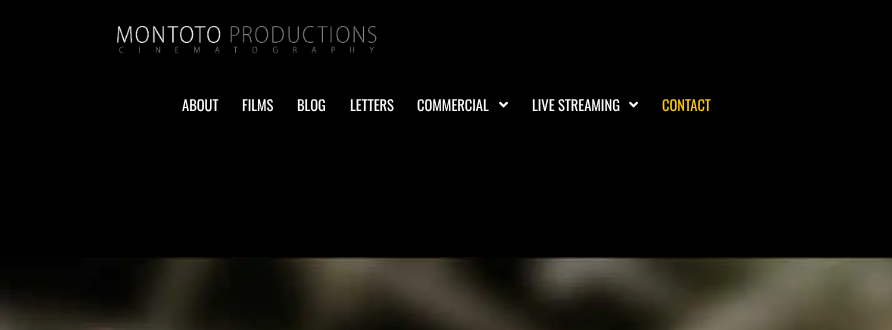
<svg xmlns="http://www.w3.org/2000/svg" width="892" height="330">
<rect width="100%" height="100%" fill="#000"/>
<image x="117" y="26" width="260" height="28" href="media/1.png"/>
<text x="182" y="111" style="font-family:Oswald;font-size:14.5px;fill:#fff">ABOUT</text>
<text x="242" y="111" style="font-family:Oswald;font-size:14.5px;fill:#fff">FILMS</text>
<text x="297" y="111" style="font-family:Oswald;font-size:14.5px;fill:#fff">BLOG</text>
<text x="350" y="111" style="font-family:Oswald;font-size:14.5px;fill:#fff">LETTERS</text>
<text x="417" y="111" style="font-family:Oswald;font-size:14.5px;fill:#fff">COMMERCIAL</text>
<image x="499" y="101" width="9" height="7" href="media/2.png"/>
<text x="532" y="111" style="font-family:Oswald;font-size:14.5px;fill:#fff">LIVE STREAMING</text>
<image x="629" y="101" width="9" height="7" href="media/2.png"/>
<text x="662" y="111" style="font-family:Oswald;font-size:14.5px;fill:#fc0">CONTACT</text>
<image x="0" y="257" width="892" height="73" href="media/3.png"/>
</svg>
